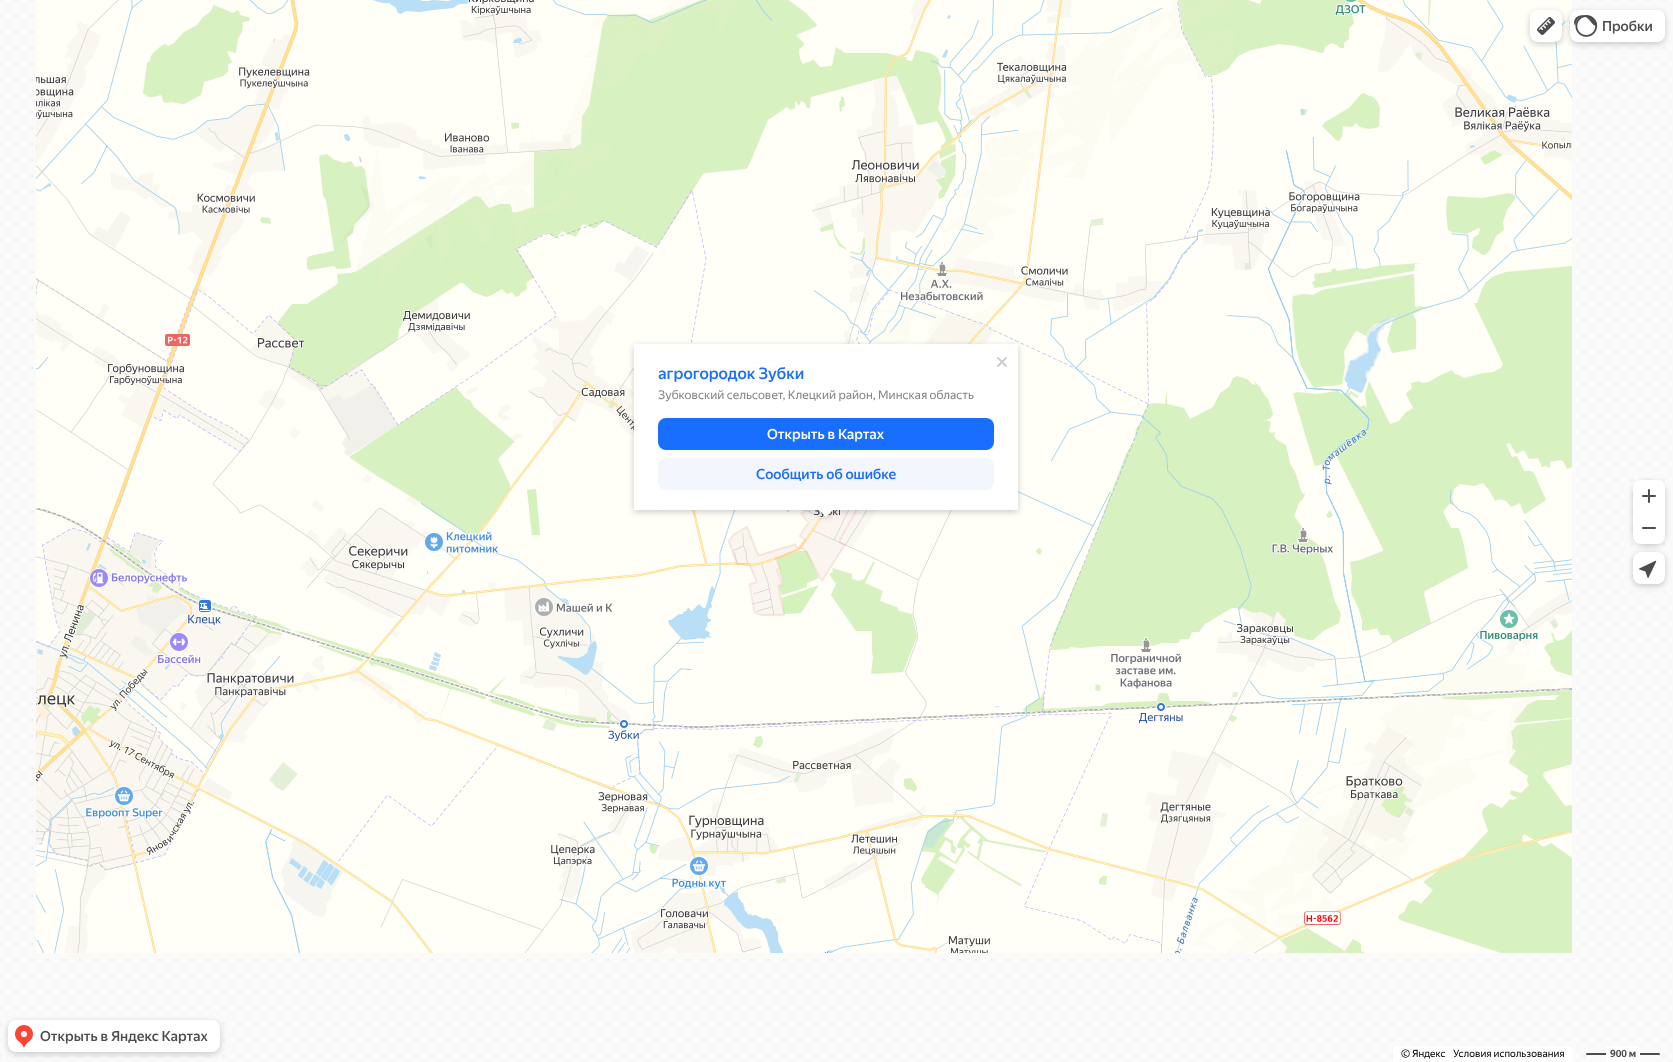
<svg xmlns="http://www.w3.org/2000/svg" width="1673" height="1062">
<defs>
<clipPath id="clip1"><rect x="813" y="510" width="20" height="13"/></clipPath>
<clipPath id="clip2"><rect x="813" y="510" width="20" height="13"/></clipPath>
</defs>
<rect width="100%" height="100%" fill="#fff"/>
<image x="0" y="0" width="1673" height="1062" href="media/1.png"/>
<image x="36" y="0" width="256" height="185" href="media/2.png"/>
<image x="292" y="0" width="256" height="185" href="media/3.png"/>
<image x="548" y="0" width="256" height="185" href="media/4.png"/>
<image x="804" y="0" width="256" height="185" href="media/5.png"/>
<image x="1060" y="0" width="256" height="185" href="media/6.png"/>
<image x="1316" y="0" width="256" height="185" href="media/7.png"/>
<image x="36" y="185" width="256" height="256" href="media/8.png"/>
<image x="292" y="185" width="256" height="256" href="media/9.png"/>
<image x="548" y="185" width="256" height="256" href="media/10.png"/>
<image x="804" y="185" width="256" height="256" href="media/11.png"/>
<image x="1060" y="185" width="256" height="256" href="media/12.png"/>
<image x="1316" y="185" width="256" height="256" href="media/13.png"/>
<image x="36" y="441" width="256" height="256" href="media/14.png"/>
<image x="292" y="441" width="256" height="256" href="media/15.png"/>
<image x="548" y="441" width="256" height="256" href="media/16.png"/>
<image x="804" y="441" width="256" height="256" href="media/17.png"/>
<image x="1060" y="441" width="256" height="256" href="media/18.png"/>
<image x="1316" y="441" width="256" height="256" href="media/19.png"/>
<image x="36" y="697" width="256" height="256" href="media/20.png"/>
<image x="292" y="697" width="256" height="256" href="media/21.png"/>
<image x="548" y="697" width="256" height="256" href="media/22.png"/>
<image x="804" y="697" width="256" height="256" href="media/23.png"/>
<image x="1060" y="697" width="256" height="256" href="media/24.png"/>
<image x="1316" y="697" width="256" height="256" href="media/25.png"/>
<image x="728" y="510" width="130" height="106" href="media/26.png"/>
<rect x="1530" y="12" width="32" height="32" rx="8" fill="#00000033" filter="blur(3px)"/>
<rect x="1530" y="10" width="32" height="32" rx="8" fill="#fff"/>
<image x="1537" y="17" width="18" height="18" href="media/27.png"/>
<rect x="1570" y="12" width="95" height="32" rx="8" fill="#00000033" filter="blur(3px)"/>
<rect x="1570" y="10" width="95" height="32" rx="8" fill="#fff"/>
<image x="1574" y="15" width="24" height="22" href="media/28.png"/>
<text x="1602" y="31" style="font-family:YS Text;font-size:14px;font-weight:500;fill:#4d4d4d">Пробки</text>
<rect x="1633" y="482" width="32" height="64" rx="12" fill="#00000033" filter="blur(3px)"/>
<path d="M1641 480h16c4.5 0 8 3.5 8 8v24h-32v-24c0-4.5 3.5-8 8-8z" fill="#fff"/>
<image x="1642" y="489" width="14" height="14" href="media/29.png"/>
<path d="M1633 512h32v24c0 4.5-3.5 8-8 8h-16c-4.5 0-8-3.5-8-8z" fill="#fff"/>
<image x="1642" y="527" width="14" height="2" href="media/30.png"/>
<rect x="1633" y="554" width="32" height="32" rx="8" fill="#00000033" filter="blur(3px)"/>
<rect x="1633" y="552" width="32" height="32" rx="8" fill="#fff"/>
<image x="1639" y="560" width="18" height="18" href="media/31.png"/>
<rect x="8" y="1022" width="212" height="32" rx="8" fill="#00000033" filter="blur(3px)"/>
<rect x="8" y="1020" width="212" height="32" rx="8" fill="#fff"/>
<image x="15" y="1025" width="18" height="23" href="media/32.png"/>
<text x="40" y="1041" style="font-family:YS Text;font-size:14px;font-weight:500;fill:#4d4d4d">Открыть в Яндекс Картах</text>
<path d="M1397 1046h172c2 0 4 2 4 4v12h-180v-12c0-2 2-4 4-4z" fill="#fff"/>
<text x="1401" y="1057" style="font-family:YS Text;font-size:10px;fill:#000">© Яндекс</text>
<text x="1453" y="1057" style="font-family:YS Text;font-size:10px;fill:#000">Условия использования</text>
<rect x="1584" y="1051" width="78" height="6" rx="3" fill="#ffffff99"/>
<rect x="1586" y="1053" width="74" height="2" rx="1" fill="#4d4d4d"/>
<path d="M1610 1046h26c2 0 4 2 4 4v12h-34v-12c0-2 2-4 4-4z" fill="#fff"/>
<text x="1610" y="1057" style="font-family:YS Text;font-size:10px;font-weight:bold;fill:#4d4d4d">900 м</text>
<rect x="634" y="346" width="384" height="166" fill="#00000033" filter="blur(3px)"/>
<rect x="634" y="344" width="384" height="166" fill="#fff"/>
<image x="997" y="357" width="10" height="10" href="media/33.png"/>
<text x="658" y="379" style="font-family:YS Text;font-size:16px;font-weight:500;fill:#196dff">агрогородок Зубки</text>
<text x="658" y="399" style="font-family:YS Text;font-size:12px;fill:#878787">Зубковский сельсовет, Клецкий район, Минская область</text>
<rect x="658" y="418" width="336" height="32" rx="8" fill="#196dff"/>
<text x="767" y="439" style="font-family:YS Text;font-size:14px;font-weight:500;fill:#fff">Открыть в Картах</text>
<rect x="658" y="458" width="336" height="32" rx="8" fill="#f3f6fc"/>
<text x="756" y="479" style="font-family:YS Text;font-size:14px;font-weight:500;fill:#196dff">Сообщить об ошибке</text>
<g clip-path="url(#clip1)">
<rect x="821" y="507" width="10" height="10" fill="#00000033" filter="blur(3px)"/>
</g>
<g clip-path="url(#clip2)">
<path d="M826 503l7 7l-7 7l-7-7z" fill="#fff"/>
</g>
</svg>
